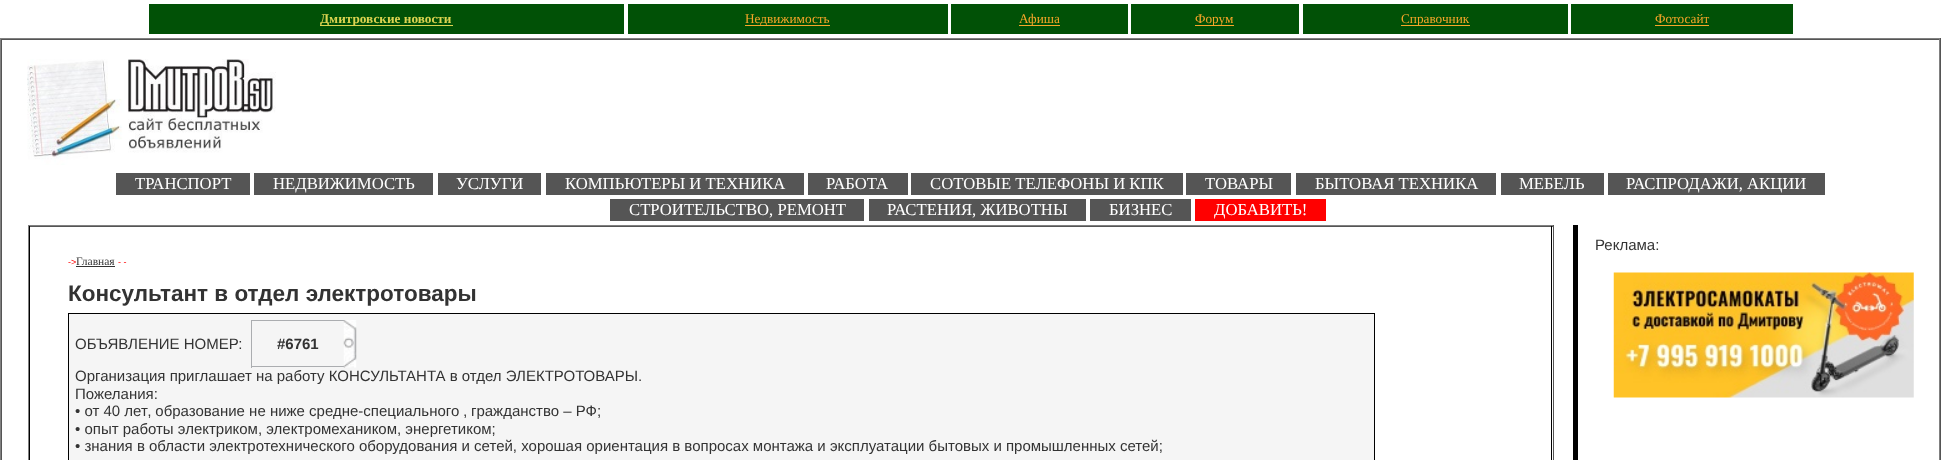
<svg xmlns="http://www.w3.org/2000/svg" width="1941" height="460">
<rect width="100%" height="100%" fill="#fff"/>
<rect x="149" y="4" width="475" height="30" fill="#015106"/>
<rect x="320" y="25" width="133" height="1" fill="#dcd451"/>
<text x="320" y="23" style="font-family:Liberation Serif;font-size:13.25px;font-weight:bold;fill:#dcd451">Дмитровские новости</text>
<rect x="628" y="4" width="320" height="30" fill="#015106"/>
<rect x="745" y="25" width="85" height="1" fill="#f7a629"/>
<text x="745" y="23" style="font-family:Liberation Serif;font-size:13.25px;fill:#f7a629">Недвижимость</text>
<rect x="951" y="4" width="177" height="30" fill="#015106"/>
<rect x="1019" y="25" width="41" height="1" fill="#f7a629"/>
<text x="1019" y="23" style="font-family:Liberation Serif;font-size:13.25px;fill:#f7a629">Афиша</text>
<rect x="1131" y="4" width="168" height="30" fill="#015106"/>
<rect x="1195" y="25" width="39" height="1" fill="#f7a629"/>
<text x="1195" y="23" style="font-family:Liberation Serif;font-size:13.25px;fill:#f7a629">Форум</text>
<rect x="1303" y="4" width="265" height="30" fill="#015106"/>
<rect x="1401" y="25" width="69" height="1" fill="#f7a629"/>
<text x="1401" y="23" style="font-family:Liberation Serif;font-size:13.25px;fill:#f7a629">Справочник</text>
<rect x="1571" y="4" width="222" height="30" fill="#015106"/>
<text x="1655" y="23" style="font-family:Liberation Serif;font-size:13.25px;fill:#f7a629">Фотосайт</text>
<rect x="1655" y="25" width="54" height="1" fill="#f7a629"/>
<rect y="38" width="1941" height="1" fill="#808080"/>
<rect x="1940" y="38" width="1" height="422" fill="#555"/>
<rect y="38" width="1" height="422" fill="#808080"/>
<rect x="1" y="39" width="1939" height="1" fill="#555"/>
<rect x="1939" y="39" width="1" height="421" fill="#808080"/>
<rect x="1" y="39" width="1" height="421" fill="#555"/>
<image x="27" y="59" width="249" height="106" href="media/1.png"/>
<rect x="116" y="173" width="134" height="22" fill="#555"/>
<text x="135" y="189" style="font-family:Liberation Serif;font-size:16.7px;fill:#fff">ТРАНСПОРТ</text>
<rect x="254" y="173" width="179" height="22" fill="#555"/>
<text x="273" y="189" style="font-family:Liberation Serif;font-size:16.7px;fill:#fff">НЕДВИЖИМОСТЬ</text>
<rect x="438" y="173" width="103" height="22" fill="#555"/>
<text x="456" y="189" style="font-family:Liberation Serif;font-size:16.7px;fill:#fff">УСЛУГИ</text>
<rect x="546" y="173" width="258" height="22" fill="#555"/>
<text x="565" y="189" style="font-family:Liberation Serif;font-size:16.7px;fill:#fff">КОМПЬЮТЕРЫ И ТЕХНИКА</text>
<rect x="808" y="173" width="100" height="22" fill="#555"/>
<text x="826" y="189" style="font-family:Liberation Serif;font-size:16.7px;fill:#fff">РАБОТА</text>
<rect x="911" y="173" width="272" height="22" fill="#555"/>
<text x="930" y="189" style="font-family:Liberation Serif;font-size:16.7px;fill:#fff">СОТОВЫЕ ТЕЛЕФОНЫ И КПК</text>
<rect x="1186" y="173" width="105" height="22" fill="#555"/>
<text x="1205" y="189" style="font-family:Liberation Serif;font-size:16.7px;fill:#fff">ТОВАРЫ</text>
<rect x="1296" y="173" width="200" height="22" fill="#555"/>
<text x="1315" y="189" style="font-family:Liberation Serif;font-size:16.7px;fill:#fff">БЫТОВАЯ ТЕХНИКА</text>
<rect x="1501" y="173" width="103" height="22" fill="#555"/>
<text x="1519" y="189" style="font-family:Liberation Serif;font-size:16.7px;fill:#fff">МЕБЕЛЬ</text>
<rect x="1608" y="173" width="217" height="22" fill="#555"/>
<text x="1626" y="189" style="font-family:Liberation Serif;font-size:16.7px;fill:#fff">РАСПРОДАЖИ, АКЦИИ</text>
<rect x="610" y="199" width="254" height="22" fill="#555"/>
<text x="629" y="215" style="font-family:Liberation Serif;font-size:16.7px;fill:#fff">СТРОИТЕЛЬСТВО, РЕМОНТ</text>
<rect x="869" y="199" width="217" height="22" fill="#555"/>
<text x="887" y="215" style="font-family:Liberation Serif;font-size:16.7px;fill:#fff">РАСТЕНИЯ, ЖИВОТНЫ</text>
<rect x="1090" y="199" width="101" height="22" fill="#555"/>
<text x="1109" y="215" style="font-family:Liberation Serif;font-size:16.7px;fill:#fff">БИЗНЕС</text>
<rect x="1195" y="199" width="131" height="22" fill="#f00"/>
<text x="1214" y="215" style="font-family:Liberation Serif;font-size:16.7px;fill:#fff">ДОБАВИТЬ!</text>
<rect x="1573" y="225" width="5" height="235" fill="#000"/>
<text x="1595" y="250" style="font-family:Liberation Sans;font-size:15px;fill:#333">Реклама:</text>
<image x="1613" y="272" width="301" height="126" href="media/2.png"/>
<rect x="28" y="225" width="1526" height="1" fill="#808080"/>
<rect x="1553" y="225" width="1" height="235" fill="#555"/>
<rect x="28" y="225" width="1" height="235" fill="#808080"/>
<rect x="29" y="226" width="1524" height="1" fill="#555"/>
<rect x="1551" y="226" width="1" height="234" fill="#000"/>
<rect x="29" y="226" width="1" height="234" fill="#000"/>
<text x="68" y="265" style="font-family:Liberation Sans;font-size:9px;fill:#f00">-&gt;</text>
<rect x="76" y="266" width="39" height="1" fill="#333"/>
<text x="76" y="265" style="font-family:Liberation Serif;font-size:11.5px;fill:#333">Главная</text>
<text x="118" y="265" style="font-family:Liberation Sans;font-size:9px;fill:#f00">- -</text>
<text x="68" y="301" style="font-family:Liberation Sans;font-size:22.5px;font-weight:bold;fill:#333">Консультант в отдел электротовары</text>
<rect x="68.5" y="313.5" width="1306" height="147" fill="#f5f5f5" stroke="#000"/>
<text x="75" y="349" style="font-family:Liberation Sans;font-size:15px;fill:#333">ОБЪЯВЛЕНИЕ НОМЕР:</text>
<rect x="251" y="320" width="93" height="1" fill="#abadb0"/>
<rect x="251" y="366" width="93" height="1" fill="#abadb0"/>
<rect x="251" y="320" width="1" height="48" fill="#abadb0"/>
<text x="277" y="349" style="font-family:Liberation Sans;font-size:15px;font-weight:bold;fill:#333">#6761</text>
<image x="343" y="320" width="14" height="48" href="media/3.png"/>
<text x="75" y="381" style="font-family:Liberation Sans;font-size:15px;fill:#333">Организация приглашает на работу КОНСУЛЬТАНТА в отдел ЭЛЕКТРОТОВАРЫ.</text>
<text x="75" y="399" style="font-family:Liberation Sans;font-size:15px;fill:#333">Пожелания:</text>
<text x="75" y="416" style="font-family:Liberation Sans;font-size:15px;fill:#333">• от 40 лет‚ образование не ниже средне-специального ‚ гражданство – РФ;</text>
<text x="75" y="434" style="font-family:Liberation Sans;font-size:15px;fill:#333">• опыт работы электриком, электромехаником, энергетиком;</text>
<text x="75" y="451" style="font-family:Liberation Sans;font-size:15px;fill:#333">• знания в области электротехнического оборудования и сетей, хорошая ориентация в вопросах монтажа и эксплуатации бытовых и промышленных сетей;</text>
</svg>
